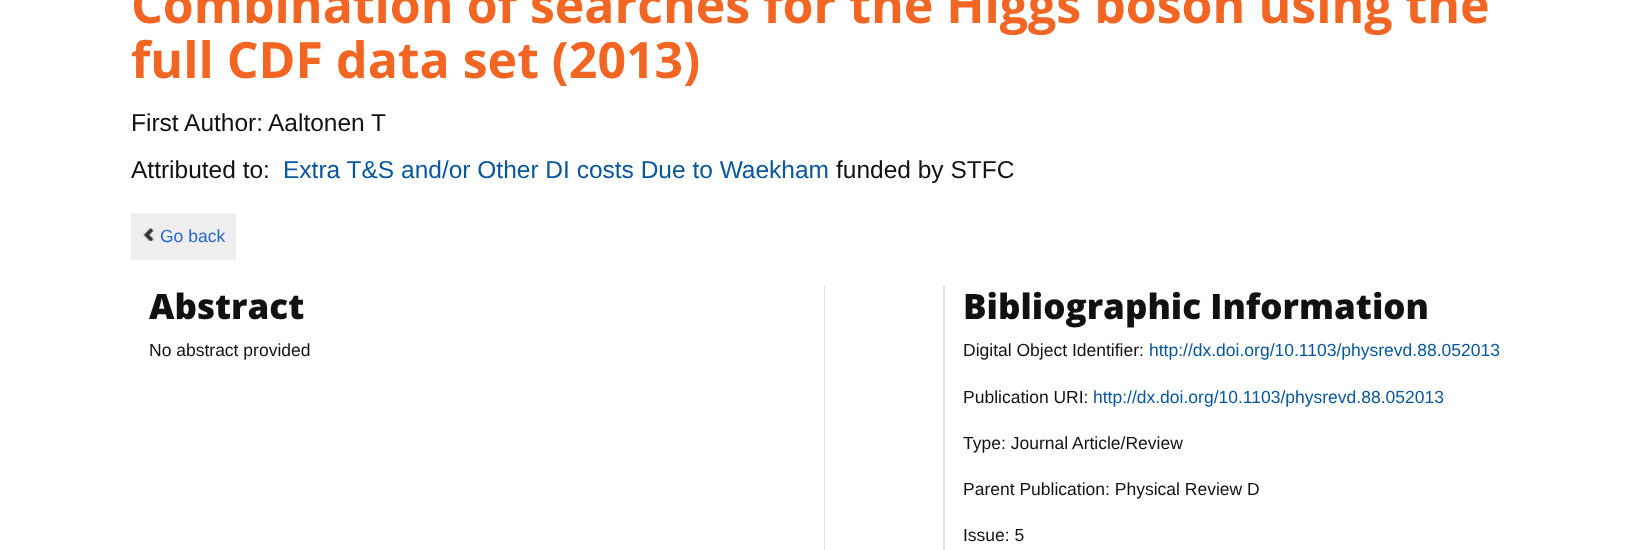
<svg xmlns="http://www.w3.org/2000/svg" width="1648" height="550">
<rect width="100%" height="100%" fill="#fff"/>
<text x="131" y="23" style="font-family:Open Sans;font-size:50px;font-weight:bold;fill:#f26522">Combination of searches for the Higgs boson using the</text>
<text x="131" y="78" style="font-family:Open Sans;font-size:50px;font-weight:bold;fill:#f26522">full CDF data set (2013)</text>
<text x="131" y="131" style="font-family:Liberation Sans;font-size:24.5px;fill:#111">First Author:</text>
<text x="268" y="131" style="font-family:Liberation Sans;font-size:24.5px;fill:#111">Aaltonen T</text>
<text x="131" y="178" style="font-family:Liberation Sans;font-size:24.5px;fill:#111">Attributed to:</text>
<text x="283" y="178" style="font-family:Liberation Sans;font-size:24.5px;fill:#07569e">Extra T&amp;S and/or Other DI costs Due to Waekham</text>
<text x="836" y="178" style="font-family:Liberation Sans;font-size:24.5px;fill:#111">funded by STFC</text>
<rect x="131" y="213" width="105" height="47" fill="#eee"/>
<image x="143" y="228" width="11" height="13" href="media/1.png"/>
<text x="160" y="242" style="font-family:Liberation Sans;font-size:17.5px;fill:#2967cd">Go back</text>
<rect x="824" y="286" width="1" height="264" fill="#dee2e6"/>
<text x="149" y="319" style="font-family:Open Sans;font-size:35px;font-weight:800;fill:#111">Abstract</text>
<text x="149" y="356" style="font-family:Liberation Sans;font-size:17.5px;fill:#111">No abstract provided</text>
<rect x="943" y="286" width="2" height="264" fill="#dee2e6"/>
<text x="963" y="319" style="font-family:Open Sans;font-size:35px;font-weight:800;fill:#111">Bibliographic Information</text>
<text x="963" y="356" style="font-family:Liberation Sans;font-size:17.5px;fill:#111">Digital Object Identifier:</text>
<text x="1149" y="356" style="font-family:Liberation Sans;font-size:17.5px;fill:#07569e">http://dx.doi.org/10.1103/physrevd.88.052013</text>
<text x="963" y="403" style="font-family:Liberation Sans;font-size:17.5px;fill:#111">Publication URI:</text>
<text x="1093" y="403" style="font-family:Liberation Sans;font-size:17.5px;fill:#07569e">http://dx.doi.org/10.1103/physrevd.88.052013</text>
<text x="963" y="449" style="font-family:Liberation Sans;font-size:17.5px;fill:#111">Type: Journal Article/Review</text>
<text x="963" y="495" style="font-family:Liberation Sans;font-size:17.5px;fill:#111">Parent Publication: Physical Review D</text>
<text x="963" y="541" style="font-family:Liberation Sans;font-size:17.5px;fill:#111">Issue: 5</text>
</svg>
